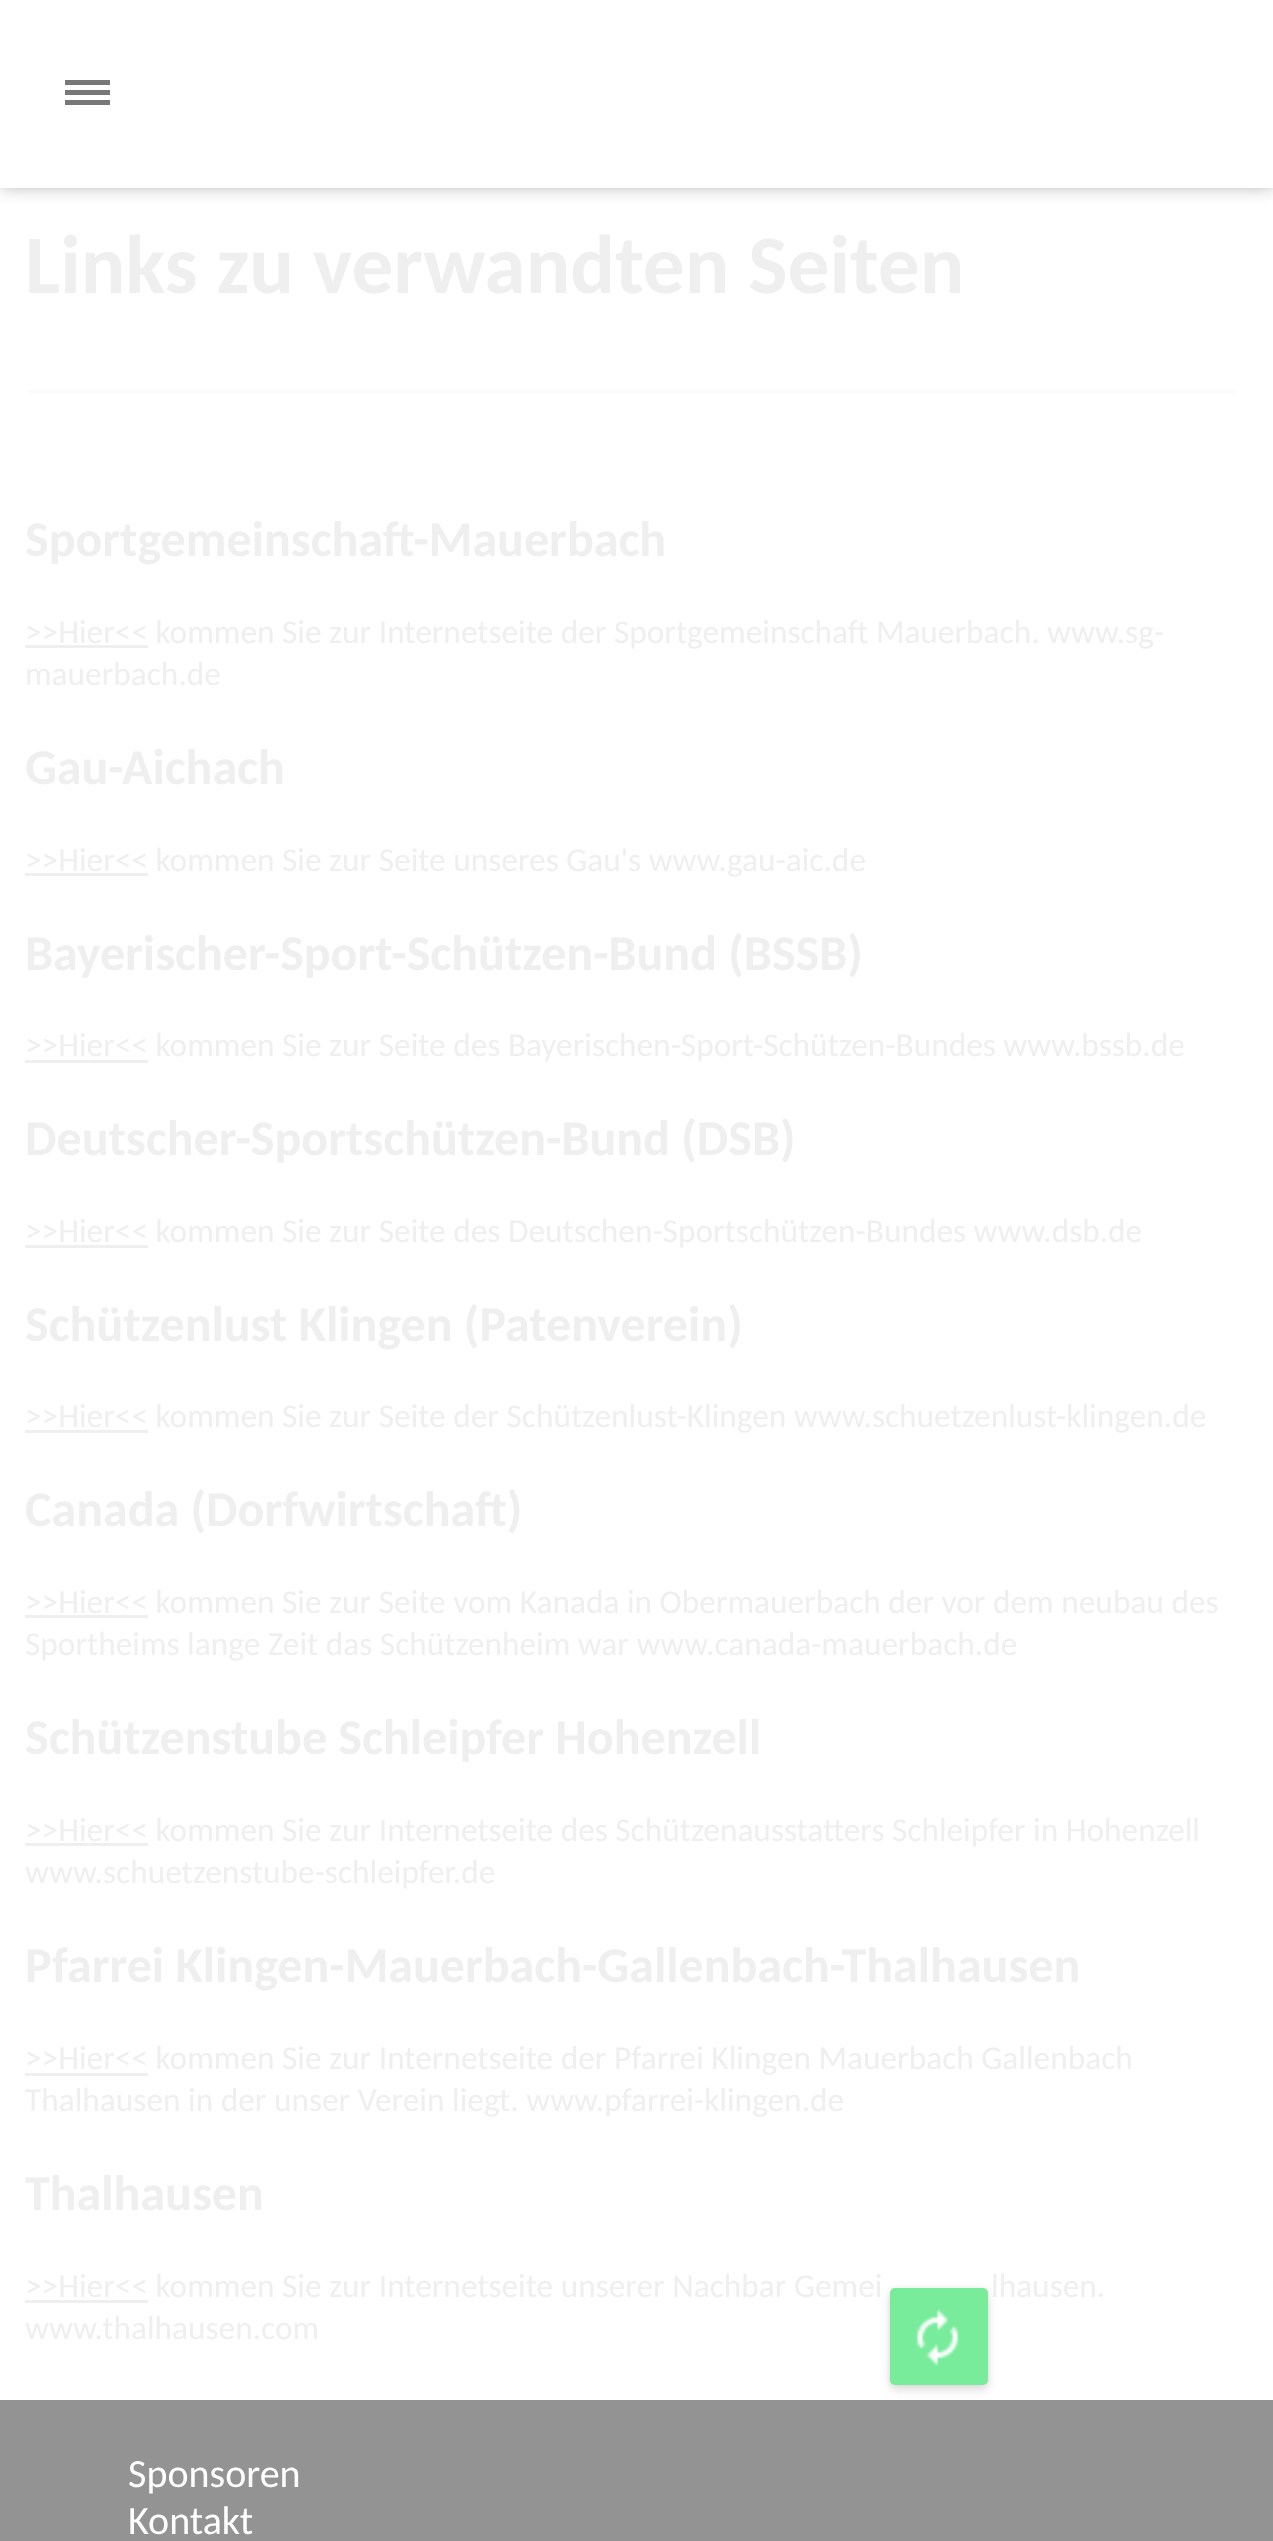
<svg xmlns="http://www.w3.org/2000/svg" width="1273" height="2541">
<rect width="100%" height="100%" fill="#fff"/>
<rect y="-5" width="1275" height="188" fill="#8a8a8a" filter="blur(10px)"/>
<rect width="1273" height="188" fill="#fff"/>
<rect x="65" y="90" width="45" height="5" fill="#787878"/>
<rect x="65" y="80" width="45" height="5" fill="#787878"/>
<rect x="65" y="100" width="45" height="5" fill="#787878"/>
<rect x="28" y="390" width="1207" height="3" fill="#fbfbfb"/>
<text x="25" y="293" style="font-family:Carlito;font-size:83.25px;font-weight:bold;fill:#efefef">Links zu verwandten Seiten</text>
<text x="25" y="556" style="font-family:Carlito;font-size:50px;font-weight:bold;fill:#efefef">Sportgemeinschaft-Mauerbach</text>
<rect x="25" y="645" width="123" height="3" fill="#efefef"/>
<text x="25" y="643" style="font-family:Carlito;font-size:33.35px;fill:#efefef">&gt;&gt;Hier&lt;&lt; kommen Sie zur Internetseite der Sportgemeinschaft Mauerbach. www.sg-</text>
<text x="25" y="685" style="font-family:Carlito;font-size:33.35px;fill:#efefef">mauerbach.de</text>
<text x="25" y="784" style="font-family:Carlito;font-size:50px;font-weight:bold;fill:#efefef">Gau-Aichach</text>
<rect x="25" y="873" width="123" height="3" fill="#efefef"/>
<text x="25" y="871" style="font-family:Carlito;font-size:33.35px;fill:#efefef">&gt;&gt;Hier&lt;&lt; kommen Sie zur Seite unseres Gau's www.gau-aic.de</text>
<text x="25" y="970" style="font-family:Carlito;font-size:50px;font-weight:bold;fill:#efefef">Bayerischer-Sport-Schützen-Bund (BSSB)</text>
<rect x="25" y="1060" width="123" height="3" fill="#efefef"/>
<text x="25" y="1056" style="font-family:Carlito;font-size:33.35px;fill:#efefef">&gt;&gt;Hier&lt;&lt; kommen Sie zur Seite des Bayerischen-Sport-Schützen-Bundes www.bssb.de</text>
<text x="25" y="1155" style="font-family:Carlito;font-size:50px;font-weight:bold;fill:#efefef">Deutscher-Sportschützen-Bund (DSB)</text>
<rect x="25" y="1245" width="123" height="3" fill="#efefef"/>
<text x="25" y="1242" style="font-family:Carlito;font-size:33.35px;fill:#efefef">&gt;&gt;Hier&lt;&lt; kommen Sie zur Seite des Deutschen-Sportschützen-Bundes www.dsb.de</text>
<text x="25" y="1341" style="font-family:Carlito;font-size:50px;font-weight:bold;fill:#efefef">Schützenlust Klingen (Patenverein)</text>
<rect x="25" y="1430" width="123" height="3" fill="#efefef"/>
<text x="25" y="1427" style="font-family:Carlito;font-size:33.35px;fill:#efefef">&gt;&gt;Hier&lt;&lt; kommen Sie zur Seite der Schützenlust-Klingen www.schuetzenlust-klingen.de</text>
<text x="25" y="1526" style="font-family:Carlito;font-size:50px;font-weight:bold;fill:#efefef">Canada (Dorfwirtschaft)</text>
<text x="25" y="1613" style="font-family:Carlito;font-size:33.35px;fill:#efefef">&gt;&gt;Hier&lt;&lt; kommen Sie zur Seite vom Kanada in Obermauerbach der vor dem neubau des</text>
<rect x="25" y="1615" width="123" height="3" fill="#efefef"/>
<text x="25" y="1655" style="font-family:Carlito;font-size:33.35px;fill:#efefef">Sportheims lange Zeit das Schützenheim war www.canada-mauerbach.de</text>
<text x="25" y="1754" style="font-family:Carlito;font-size:50px;font-weight:bold;fill:#efefef">Schützenstube Schleipfer Hohenzell</text>
<rect x="25" y="1843" width="123" height="3" fill="#efefef"/>
<text x="25" y="1841" style="font-family:Carlito;font-size:33.35px;fill:#efefef">&gt;&gt;Hier&lt;&lt; kommen Sie zur Internetseite des Schützenausstatters Schleipfer in Hohenzell</text>
<text x="25" y="1883" style="font-family:Carlito;font-size:33.35px;fill:#efefef">www.schuetzenstube-schleipfer.de</text>
<text x="25" y="1982" style="font-family:Carlito;font-size:50px;font-weight:bold;fill:#efefef">Pfarrei Klingen-Mauerbach-Gallenbach-Thalhausen</text>
<rect x="25" y="2073" width="123" height="3" fill="#efefef"/>
<text x="25" y="2069" style="font-family:Carlito;font-size:33.35px;fill:#efefef">&gt;&gt;Hier&lt;&lt; kommen Sie zur Internetseite der Pfarrei Klingen Mauerbach Gallenbach</text>
<text x="25" y="2111" style="font-family:Carlito;font-size:33.35px;fill:#efefef">Thalhausen in der unser Verein liegt. www.pfarrei-klingen.de</text>
<text x="25" y="2210" style="font-family:Carlito;font-size:50px;font-weight:bold;fill:#efefef">Thalhausen</text>
<text x="25" y="2297" style="font-family:Carlito;font-size:33.35px;fill:#efefef">&gt;&gt;Hier&lt;&lt; kommen Sie zur Internetseite unserer Nachbar Gemei</text>
<rect x="25" y="2300" width="123" height="3" fill="#efefef"/>
<text x="991" y="2297" style="font-family:Carlito;font-size:33.35px;fill:#efefef">lhausen.</text>
<text x="25" y="2339" style="font-family:Carlito;font-size:33.35px;fill:#efefef">www.thalhausen.com</text>
<rect y="2400" width="1273" height="141" fill="#939393"/>
<rect x="890" y="2293" width="98" height="97" rx="5" fill="#7878783d" filter="blur(5px)"/>
<rect x="890" y="2288" width="98" height="97" rx="5" fill="#7878781f" filter="blur(2.5px)"/>
<rect x="890" y="2288" width="98" height="97" rx="5" fill="#78ec9b"/>
<image x="916" y="2309" width="43" height="58" href="media/1.png"/>
<text x="128" y="2487" style="font-family:Carlito;font-size:40px;fill:#fff">Sponsoren</text>
<text x="128" y="2534" style="font-family:Carlito;font-size:40px;fill:#fff">Kontakt</text>
</svg>
